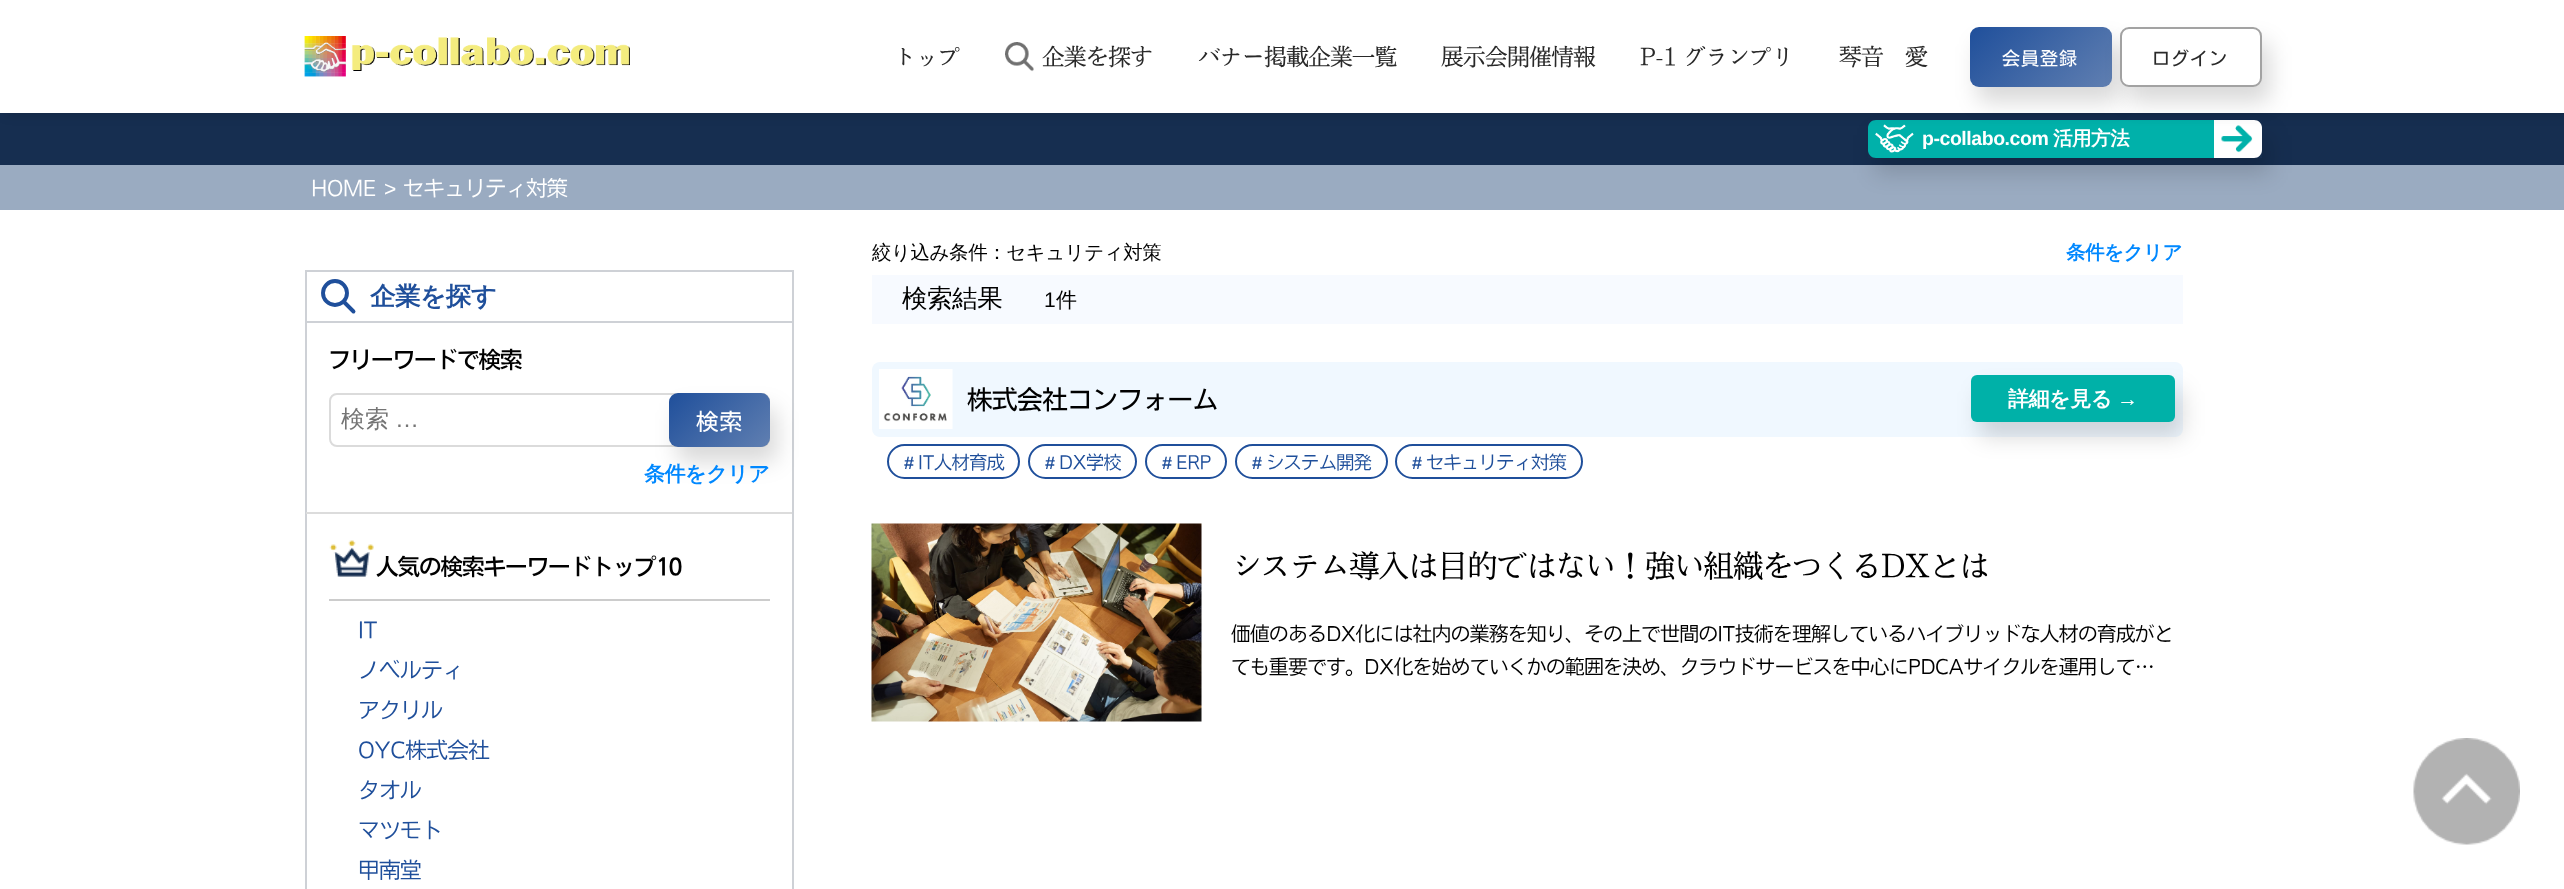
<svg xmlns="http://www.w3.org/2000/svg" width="2564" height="889">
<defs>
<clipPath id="clip1"><path d="M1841 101h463v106h-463zm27 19h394v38h-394z" clip-rule="evenodd"/></clipPath>
<linearGradient id="g1" gradientUnits="userSpaceOnUse" x1="1990" y1="6.4" x2="2091" y2="108"><stop offset="0" stop-color="#1f4f9b"/><stop offset="1" stop-color="#607fb1"/></linearGradient>
<linearGradient id="g2" gradientUnits="userSpaceOnUse" x1="681" y1="381" x2="758" y2="459"><stop offset="0" stop-color="#1f4f9b"/><stop offset="1" stop-color="#607fb1"/></linearGradient>
</defs>
<rect width="100%" height="100%" fill="#fff"/>
<rect y="113" width="2564" height="52" fill="#162e50"/>
<rect y="165" width="2564" height="45" fill="#9aabc1"/>
<g clip-path="url(#clip1)">
<rect x="1875" y="135" width="395" height="38" fill="#00000026" filter="blur(11px)"/>
</g>
<path d="M1876 120h338v38h-338c-4.5 0-8-3.5-8-8v-22c0-4.5 3.5-8 8-8z" fill="#00b1aa"/>
<image x="1875" y="124" width="39" height="29" href="media/3.png"/>
<path d="M2214 120h40c4.5 0 8 3.5 8 8v22c0 4.5-3.5 8-8 8h-40z" fill="#fff"/>
<image x="2221" y="125" width="32" height="28" href="media/4.png"/>
<rect x="5" y="2" width="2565" height="112" fill="#00000026" filter="blur(6px)"/>
<rect width="2564" height="113" fill="#fff"/>
<image x="304" y="36" width="326" height="41" href="media/1.png"/>
<text x="894" y="65" style="font-family:'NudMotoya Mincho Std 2';font-size:22.5px;letter-spacing:-0.45px;fill:#292929">トップ</text>
<image x="1005" y="42" width="29" height="30" href="media/2.png"/>
<text x="1042" y="65" style="font-family:'NudMotoya Mincho Std 2';font-size:22.5px;letter-spacing:-0.45px;fill:#292929">企業を探す</text>
<text x="1198" y="65" style="font-family:'NudMotoya Mincho Std 2';font-size:22.5px;letter-spacing:-0.45px;fill:#292929">バナー掲載企業一覧</text>
<text x="1441" y="65" style="font-family:'NudMotoya Mincho Std 2';font-size:22.5px;letter-spacing:-0.45px;fill:#292929">展示会開催情報</text>
<text x="1640" y="65" style="font-family:'NudMotoya Mincho Std 2';font-size:22.5px;letter-spacing:-0.45px;fill:#292929">P-1 グランプリ</text>
<text x="1839" y="65" style="font-family:'NudMotoya Mincho Std 2';font-size:22.5px;letter-spacing:-0.45px;fill:#292929">琴音　愛</text>
<rect x="1977" y="42" width="143" height="60" rx="9" fill="#00000026" filter="blur(11px)"/>
<rect x="1970" y="27" width="142" height="60" rx="9" fill="url(#g1)"/>
<text x="2002" y="65" style="font-family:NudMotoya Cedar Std;font-size:18px;letter-spacing:1px;fill:#fff">会員登録</text>
<rect x="2127" y="42" width="143" height="60" rx="9" fill="#00000026" filter="blur(11px)"/>
<rect x="2121" y="28" width="140" height="58" rx="8" fill="#fff" stroke="#a2a2a2" stroke-width="2"/>
<text x="2152" y="65" style="font-family:NudMotoya Cedar Std;font-size:18px;letter-spacing:1px;fill:#292929">ログイン</text>
<text x="1922" y="145" style="font-family:Liberation Sans;font-size:19.5px;font-weight:bold;letter-spacing:-0.45px;fill:#fff">p-collabo.com</text>
<text x="2053" y="145" style="font-family:WenQuanYi Zen Hei;font-size:19.5px;font-weight:bold;letter-spacing:-0.45px;fill:#fff">活用方法</text>
<text x="311" y="196" style="font-family:NudMotoya Cedar Std;font-size:21px;font-weight:300;letter-spacing:-0.45px;fill:#fff">HOME</text>
<text x="384" y="196" style="font-family:Liberation Sans;font-size:21px;letter-spacing:-0.45px;fill:#fff">&gt;</text>
<text x="403" y="196" style="font-family:NudMotoya Cedar Std;font-size:21px;font-weight:300;letter-spacing:-0.45px;fill:#fff">セキュリティ対策</text>
<rect x="306" y="271" width="487" height="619" fill="none" stroke="#ced1d6" stroke-width="2"/>
<rect x="306" y="321" width="486" height="2" fill="#ced1d6"/>
<circle cx="335" cy="293" r="12" fill="none" stroke="#1f4f9b" stroke-width="3.9"/>
<path d="M344.5 302.5l9 9" fill="none" stroke="#1f4f9b" stroke-width="3.9" stroke-linecap="round"/>
<text x="370" y="305" style="font-family:WenQuanYi Zen Hei;font-size:25.5px;font-weight:bold;letter-spacing:-0.45px;fill:#1f4f9b">企業を探す</text>
<rect x="306" y="512" width="486" height="2" fill="#dcdcdc"/>
<text x="328" y="368" style="font-family:NudMotoya Cedar Std;font-size:22.5px;font-weight:500;letter-spacing:-1px;fill:#000">フリーワードで検索</text>
<rect x="330" y="394" width="439" height="52" rx="7" fill="none" stroke="#dbdbdb" stroke-width="2"/>
<text x="341" y="427" style="font-family:WenQuanYi Zen Hei;font-size:24px;font-weight:500;fill:#757575">検索</text>
<text x="395" y="427" style="font-family:Liberation Sans;font-size:24px;fill:#757575">…</text>
<rect x="677" y="408" width="100" height="54" rx="9" fill="#00000026" filter="blur(11px)"/>
<rect x="669" y="393" width="101" height="54" rx="9" fill="url(#g2)"/>
<text x="696" y="430" style="font-family:'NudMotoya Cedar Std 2';font-size:22.5px;letter-spacing:1px;fill:#fff">検索</text>
<text x="644" y="481" style="font-family:WenQuanYi Zen Hei;font-size:21px;font-weight:bold;letter-spacing:-0.45px;fill:#08f">条件をクリア</text>
<image x="329" y="540" width="45" height="37" href="media/5.png"/>
<rect x="329" y="599" width="441" height="2" fill="#ccc"/>
<text x="376" y="575" style="font-family:NudMotoya Cedar Std;font-size:22.5px;font-weight:500;letter-spacing:-1px;fill:#000">人気の検索キーワードトップ10</text>
<text x="358" y="638" style="font-family:NudMotoya Cedar Std;font-size:21.5px;font-weight:300;letter-spacing:-0.45px;fill:#1f4f9b">IT</text>
<text x="358" y="678" style="font-family:NudMotoya Cedar Std;font-size:21.5px;font-weight:300;letter-spacing:-0.45px;fill:#1f4f9b">ノベルティ</text>
<text x="358" y="718" style="font-family:NudMotoya Cedar Std;font-size:21.5px;font-weight:300;letter-spacing:-0.45px;fill:#1f4f9b">アクリル</text>
<text x="358" y="758" style="font-family:NudMotoya Cedar Std;font-size:21.5px;font-weight:300;letter-spacing:-0.45px;fill:#1f4f9b">OYC株式会社</text>
<text x="358" y="798" style="font-family:NudMotoya Cedar Std;font-size:21.5px;font-weight:300;letter-spacing:-0.45px;fill:#1f4f9b">タオル</text>
<text x="358" y="838" style="font-family:NudMotoya Cedar Std;font-size:21.5px;font-weight:300;letter-spacing:-0.45px;fill:#1f4f9b">マツモト</text>
<text x="358" y="878" style="font-family:NudMotoya Cedar Std;font-size:21.5px;font-weight:300;letter-spacing:-0.45px;fill:#1f4f9b">甲南堂</text>
<text x="872" y="259" style="font-family:WenQuanYi Zen Hei;font-size:19.5px;font-weight:500;letter-spacing:-0.45px;fill:#000">絞り込み条件：セキュリティ対策</text>
<text x="2066" y="259" style="font-family:WenQuanYi Zen Hei;font-size:19.5px;font-weight:bold;letter-spacing:-0.45px;fill:#08f">条件をクリア</text>
<rect x="872" y="275" width="1311" height="49" fill="#f7faff"/>
<text x="902" y="307" style="font-family:WenQuanYi Zen Hei;font-size:25.5px;font-weight:500;letter-spacing:-0.45px;fill:#000">検索結果</text>
<text x="1044" y="307" style="font-family:Liberation Sans;font-size:21px;letter-spacing:-0.45px;fill:#000">1</text>
<text x="1056" y="307" style="font-family:WenQuanYi Zen Hei;font-size:21px;font-weight:500;letter-spacing:-0.45px;fill:#000">件</text>
<rect x="872" y="362" width="1311" height="75" rx="8" fill="#f0f8ff"/>
<image x="879" y="369" width="74" height="60" href="media/6.png"/>
<text x="967" y="409" style="font-family:NudMotoya Cedar Std;font-size:25.5px;letter-spacing:-0.45px;fill:#000">株式会社コンフォーム</text>
<rect x="1979" y="390" width="204" height="47" rx="6" fill="#00000026" filter="blur(11px)"/>
<rect x="1971" y="375" width="204" height="47" rx="6" fill="#00b1a8"/>
<text x="2008" y="406" style="font-family:WenQuanYi Zen Hei;font-size:21px;font-weight:bold;letter-spacing:-0.45px;fill:#fff">詳細を見る</text>
<text x="2117" y="406" style="font-family:Liberation Sans;font-size:21px;font-weight:bold;letter-spacing:-0.45px;fill:#fff">→</text>
<rect x="888" y="445" width="131" height="33" rx="16.5" fill="none" stroke="#1f4f9b" stroke-width="2"/>
<text x="904" y="469" style="font-family:Liberation Sans;font-size:18px;font-weight:bold;letter-spacing:-0.45px;fill:#1f4f9b">#</text>
<text x="918" y="469" style="font-family:NudMotoya Cedar Std;font-size:18px;font-weight:300;letter-spacing:-0.45px;fill:#1f4f9b">IT人材育成</text>
<rect x="1029" y="445" width="107" height="33" rx="16.5" fill="none" stroke="#1f4f9b" stroke-width="2"/>
<text x="1045" y="469" style="font-family:Liberation Sans;font-size:18px;font-weight:bold;letter-spacing:-0.45px;fill:#1f4f9b">#</text>
<text x="1059" y="469" style="font-family:NudMotoya Cedar Std;font-size:18px;font-weight:300;letter-spacing:-0.45px;fill:#1f4f9b">DX学校</text>
<rect x="1146" y="445" width="80" height="33" rx="16.5" fill="none" stroke="#1f4f9b" stroke-width="2"/>
<text x="1162" y="469" style="font-family:Liberation Sans;font-size:18px;font-weight:bold;letter-spacing:-0.45px;fill:#1f4f9b">#</text>
<text x="1176" y="469" style="font-family:NudMotoya Cedar Std;font-size:18px;font-weight:300;letter-spacing:-0.45px;fill:#1f4f9b">ERP</text>
<rect x="1236" y="445" width="151" height="33" rx="16.5" fill="none" stroke="#1f4f9b" stroke-width="2"/>
<text x="1252" y="469" style="font-family:Liberation Sans;font-size:18px;font-weight:bold;letter-spacing:-0.45px;fill:#1f4f9b">#</text>
<text x="1266" y="469" style="font-family:NudMotoya Cedar Std;font-size:18px;font-weight:300;letter-spacing:-0.45px;fill:#1f4f9b">システム開発</text>
<rect x="1396" y="445" width="186" height="33" rx="16.5" fill="none" stroke="#1f4f9b" stroke-width="2"/>
<text x="1412" y="469" style="font-family:Liberation Sans;font-size:18px;font-weight:bold;letter-spacing:-0.45px;fill:#1f4f9b">#</text>
<text x="1426" y="469" style="font-family:NudMotoya Cedar Std;font-size:18px;font-weight:300;letter-spacing:-0.45px;fill:#1f4f9b">セキュリティ対策</text>
<image x="871" y="523" width="331" height="199" href="media/7.png"/>
<text x="1231" y="577" style="font-family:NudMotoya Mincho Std;font-size:30px;letter-spacing:-0.45px;fill:#000">システム導入は目的ではない！強い組織をつくるDXとは</text>
<text x="1231" y="641" style="font-family:'NudMotoya Cedar Std 2';font-size:19.5px;font-weight:300;letter-spacing:-0.45px;fill:#000">価値のあるDX化には社内の業務を知り、その上で世間のIT技術を理解しているハイブリッドな人材の育成がと</text>
<text x="1231" y="674" style="font-family:'NudMotoya Cedar Std 2';font-size:19.5px;font-weight:300;letter-spacing:-0.45px;fill:#000">ても重要です。DX化を始めていくかの範囲を決め、クラウドサービスを中心にPDCAサイクルを運用して…</text>
<image x="2413" y="738" width="107" height="107" href="media/8.png"/>
</svg>
